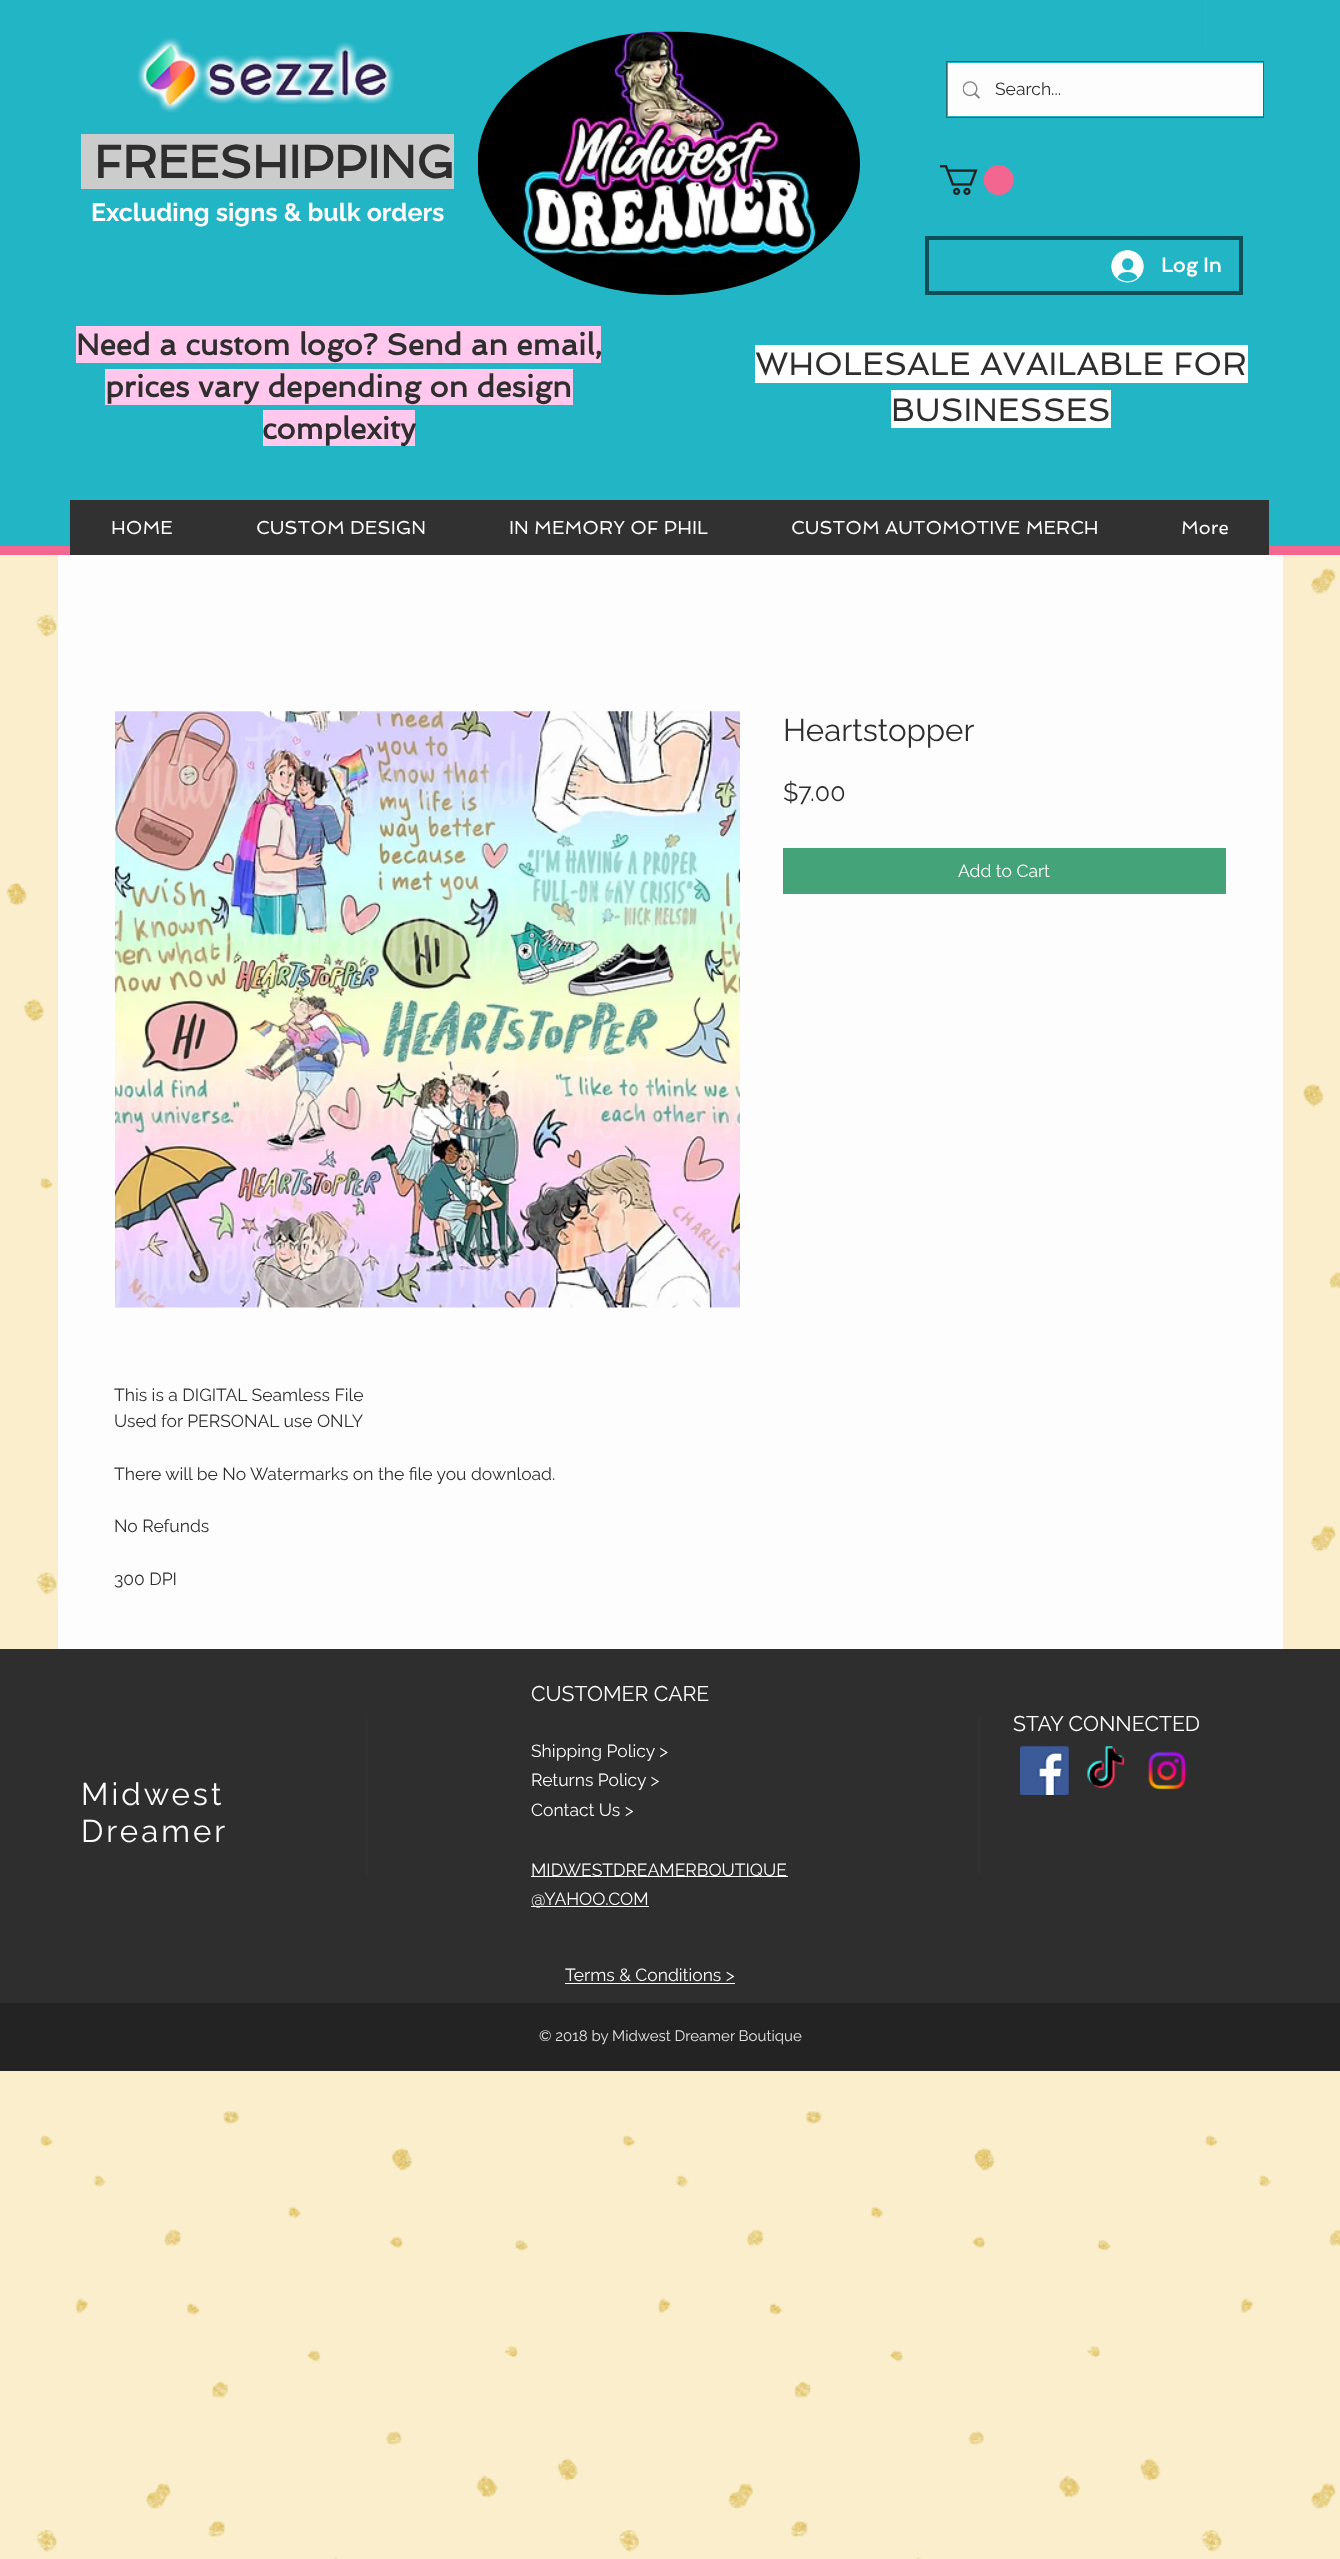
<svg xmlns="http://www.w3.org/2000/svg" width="1340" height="2559">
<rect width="100%" height="100%" fill="#faeecd"/>
<rect width="1340" height="546" fill="#21b5c6"/>
<rect y="546" width="1340" height="9" fill="#f2668f"/>
<rect x="1205" width="1" height="51" fill="#49a9b4"/>
<image x="137" y="37" width="258" height="76" href="media/1.png"/>
<image x="478" y="31" width="382" height="264" href="media/2.png"/>
<rect x="946.5" y="61.5" width="317" height="56" fill="none" stroke="#2b666d"/>
<rect x="948" y="63" width="315" height="53" fill="#fdfdfd"/>
<image x="963" y="81" width="17" height="18" href="media/3.png"/>
<text x="995" y="95" style="font-family:Raleway;font-size:17.5px;fill:#2f2e2e">Search...</text>
<rect x="81" y="134" width="373" height="55" fill="#ccc"/>
<text x="94" y="178" style="font-family:Spinnaker;font-size:46.25px;font-weight:bold;fill:#2f2e2e">FREESHIPPING</text>
<image x="940" y="165" width="74" height="31" href="media/4.png"/>
<text x="91" y="221" style="font-family:Raleway;font-size:25px;font-weight:bold;fill:#fdfdfd">Excluding signs &amp; bulk orders</text>
<rect x="927" y="238" width="314" height="55" fill="none" stroke="#0f5057" stroke-width="4"/>
<image x="1111" y="250" width="33" height="33" href="media/5.png"/>
<text x="1161" y="272" style="font-family:Spinnaker;font-size:20px;font-weight:bold;fill:#fdfdfd">Log In</text>
<rect x="76" y="326" width="525" height="37" fill="#ffc8ec"/>
<text x="76" y="355" style="font-family:Spinnaker;font-size:30px;font-weight:bold;fill:#2f2e2e">Need a custom logo? Send an email,</text>
<rect x="105" y="369" width="468" height="36" fill="#ffc8ec"/>
<text x="105" y="397" style="font-family:Spinnaker;font-size:30px;font-weight:bold;fill:#2f2e2e">prices vary depending on design</text>
<rect x="263" y="410" width="152" height="36" fill="#ffc8ec"/>
<text x="262" y="439" style="font-family:Spinnaker;font-size:30px;font-weight:bold;fill:#2f2e2e">complexity</text>
<rect x="755" y="345" width="493" height="38" fill="#fff"/>
<text x="755" y="375" style="font-family:Spinnaker;font-size:32.5px;fill:#2f2e2e">WHOLESALE AVAILABLE FOR</text>
<rect x="891" y="390" width="220" height="38" fill="#fff"/>
<text x="891" y="421" style="font-family:Spinnaker;font-size:32.5px;fill:#2f2e2e">BUSINESSES</text>
<rect x="70" y="500" width="1199" height="55" fill="#313131"/>
<text x="111" y="534" style="font-family:Spinnaker;font-size:18.75px;fill:#fdfdfd">HOME</text>
<text x="256" y="534" style="font-family:Spinnaker;font-size:18.75px;fill:#fdfdfd">CUSTOM DESIGN</text>
<text x="509" y="534" style="font-family:Spinnaker;font-size:18.75px;fill:#fdfdfd">IN MEMORY OF PHIL</text>
<text x="791" y="534" style="font-family:Spinnaker;font-size:18.75px;fill:#fdfdfd">CUSTOM AUTOMOTIVE MERCH</text>
<text x="1181" y="534" style="font-family:Spinnaker;font-size:18.75px;fill:#fdfdfd">More</text>
<image x="6" y="568" width="1334" height="1991" href="media/10.png"/>
<rect x="58" y="555" width="1225" height="1094" fill="#fdfdfd"/>
<text x="783" y="741" style="font-family:Raleway;font-size:31.25px;fill:#2f2e2e">Heartstopper</text>
<text x="783" y="801" style="font-family:Raleway;font-size:25px;fill:#2f2e2e">$7.00</text>
<rect x="783" y="848" width="443" height="46" fill="#45a37a"/>
<text x="958" y="877" style="font-family:Raleway;font-size:17.5px;fill:#fdfdfd">Add to Cart</text>
<image x="115" y="711" width="625" height="597" href="media/6.png"/>
<text x="114" y="1401" style="font-family:Raleway;font-size:17.5px;fill:#2f2e2e">This is a DIGITAL Seamless File</text>
<text x="114" y="1427" style="font-family:Raleway;font-size:17.5px;fill:#2f2e2e">Used for PERSONAL use ONLY</text>
<text x="114" y="1480" style="font-family:Raleway;font-size:17.5px;fill:#2f2e2e">There will be No Watermarks on the file you download.</text>
<text x="114" y="1532" style="font-family:Raleway;font-size:17.5px;fill:#2f2e2e">No Refunds</text>
<text x="114" y="1585" style="font-family:Raleway;font-size:17.5px;fill:#2f2e2e">300 DPI</text>
<rect y="1649" width="1340" height="354" fill="#2f2e2e"/>
<rect x="365" y="1716" width="3" height="159" fill="#313131"/>
<text x="531" y="1701" style="font-family:Raleway;font-size:21.25px;fill:#fdfdfd">CUSTOMER CARE</text>
<text x="531" y="1757" style="font-family:Raleway;font-size:17.5px;fill:#fdfdfd">Shipping Policy &gt;</text>
<text x="531" y="1786" style="font-family:Raleway;font-size:17.5px;fill:#fdfdfd">Returns Policy &gt;</text>
<text x="531" y="1816" style="font-family:Raleway;font-size:17.5px;fill:#fdfdfd">Contact Us &gt;</text>
<rect x="531" y="1876" width="257" height="1" fill="#fdfdfd"/>
<text x="531" y="1876" style="font-family:Raleway;font-size:17.5px;fill:#fdfdfd">MIDWESTDREAMERBOUTIQUE</text>
<rect x="531" y="1906" width="118" height="1" fill="#fdfdfd"/>
<text x="531" y="1905" style="font-family:Raleway;font-size:17.5px;fill:#fdfdfd">@YAHOO.COM</text>
<rect x="978" y="1716" width="3" height="159" fill="#313131"/>
<text x="1013" y="1731" style="font-family:Raleway;font-size:21.25px;fill:#fdfdfd">STAY CONNECTED</text>
<image x="1020" y="1746" width="49" height="49" href="media/7.png"/>
<image x="1086" y="1746" width="39" height="43" href="media/8.png"/>
<image x="1147" y="1751" width="40" height="39" href="media/9.png"/>
<text x="81" y="1805" style="font-family:Raleway;font-size:31.25px;letter-spacing:3px;fill:#fdfdfd">Midwest</text>
<text x="81" y="1842" style="font-family:Raleway;font-size:31.25px;letter-spacing:3px;fill:#fdfdfd">Dreamer</text>
<text x="565" y="1981" style="font-family:Raleway;font-size:17.5px;fill:#fdfdfd">Terms &amp; Conditions &gt;</text>
<rect x="565" y="1983" width="170" height="1" fill="#fdfdfd"/>
<rect y="2003" width="1340" height="68" fill="#242323"/>
<text x="539" y="2041" style="font-family:Raleway;font-size:15px;fill:#e4e4e4">© 2018 by Midwest Dreamer Boutique</text>
</svg>
